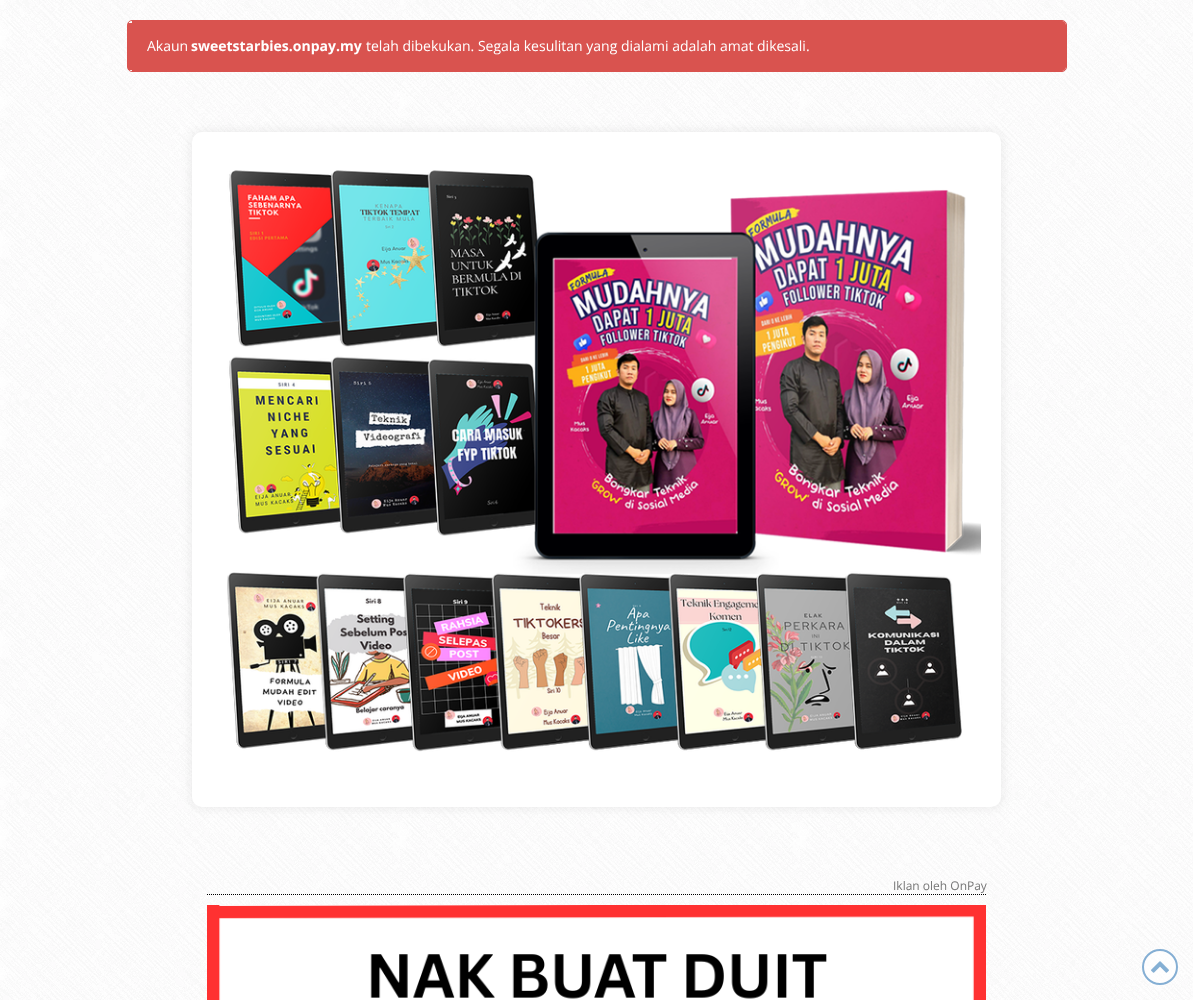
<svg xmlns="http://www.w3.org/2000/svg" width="1193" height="1000">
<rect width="100%" height="100%" fill="#fff"/>
<image x="0" y="0" width="1193" height="1000" href="media/1.png"/>
<path d="M132 21h930c2 0 4 2 4 4v42c0 2-2 4-4 4h-930z" fill="#d9534f"/>
<rect x="127.5" y="20.5" width="939" height="51" rx="4.5" fill="none" stroke="#d9534f"/>
<rect x="128" y="23" width="4" height="47" fill="#d9534f"/>
<text x="147" y="51" style="font-family:Open Sans;font-size:14px;fill:#fff">Akaun</text>
<text x="191" y="51" style="font-family:Open Sans;font-size:14px;font-weight:bold;fill:#fff">sweetstarbies.onpay.my</text>
<text x="366" y="51" style="font-family:Open Sans;font-size:14px;fill:#fff">telah dibekukan. Segala kesulitan yang dialami adalah amat dikesali.</text>
<rect x="189" y="129" width="815" height="681" rx="13" fill="#c0c0c033" filter="blur(4px)"/>
<rect x="192" y="132" width="809" height="675" rx="10" fill="#fff"/>
<image x="227" y="170" width="754" height="582" href="media/2.png"/>
<text x="893" y="890" style="font-family:Open Sans;font-size:12px;fill:#777">Iklan oleh OnPay</text>
<path d="M207 894.5h779" fill="none" stroke="#000" stroke-dasharray="1 1"/>
<image x="207" y="905" width="779" height="95" href="media/3.png"/>
<circle cx="1160" cy="967" r="18" fill="#ffffff99"/>
<circle cx="1160" cy="967" r="17" fill="none" stroke="#337ab799" stroke-width="2"/>
<image x="1151" y="961" width="18" height="12" href="media/4.png"/>
</svg>
